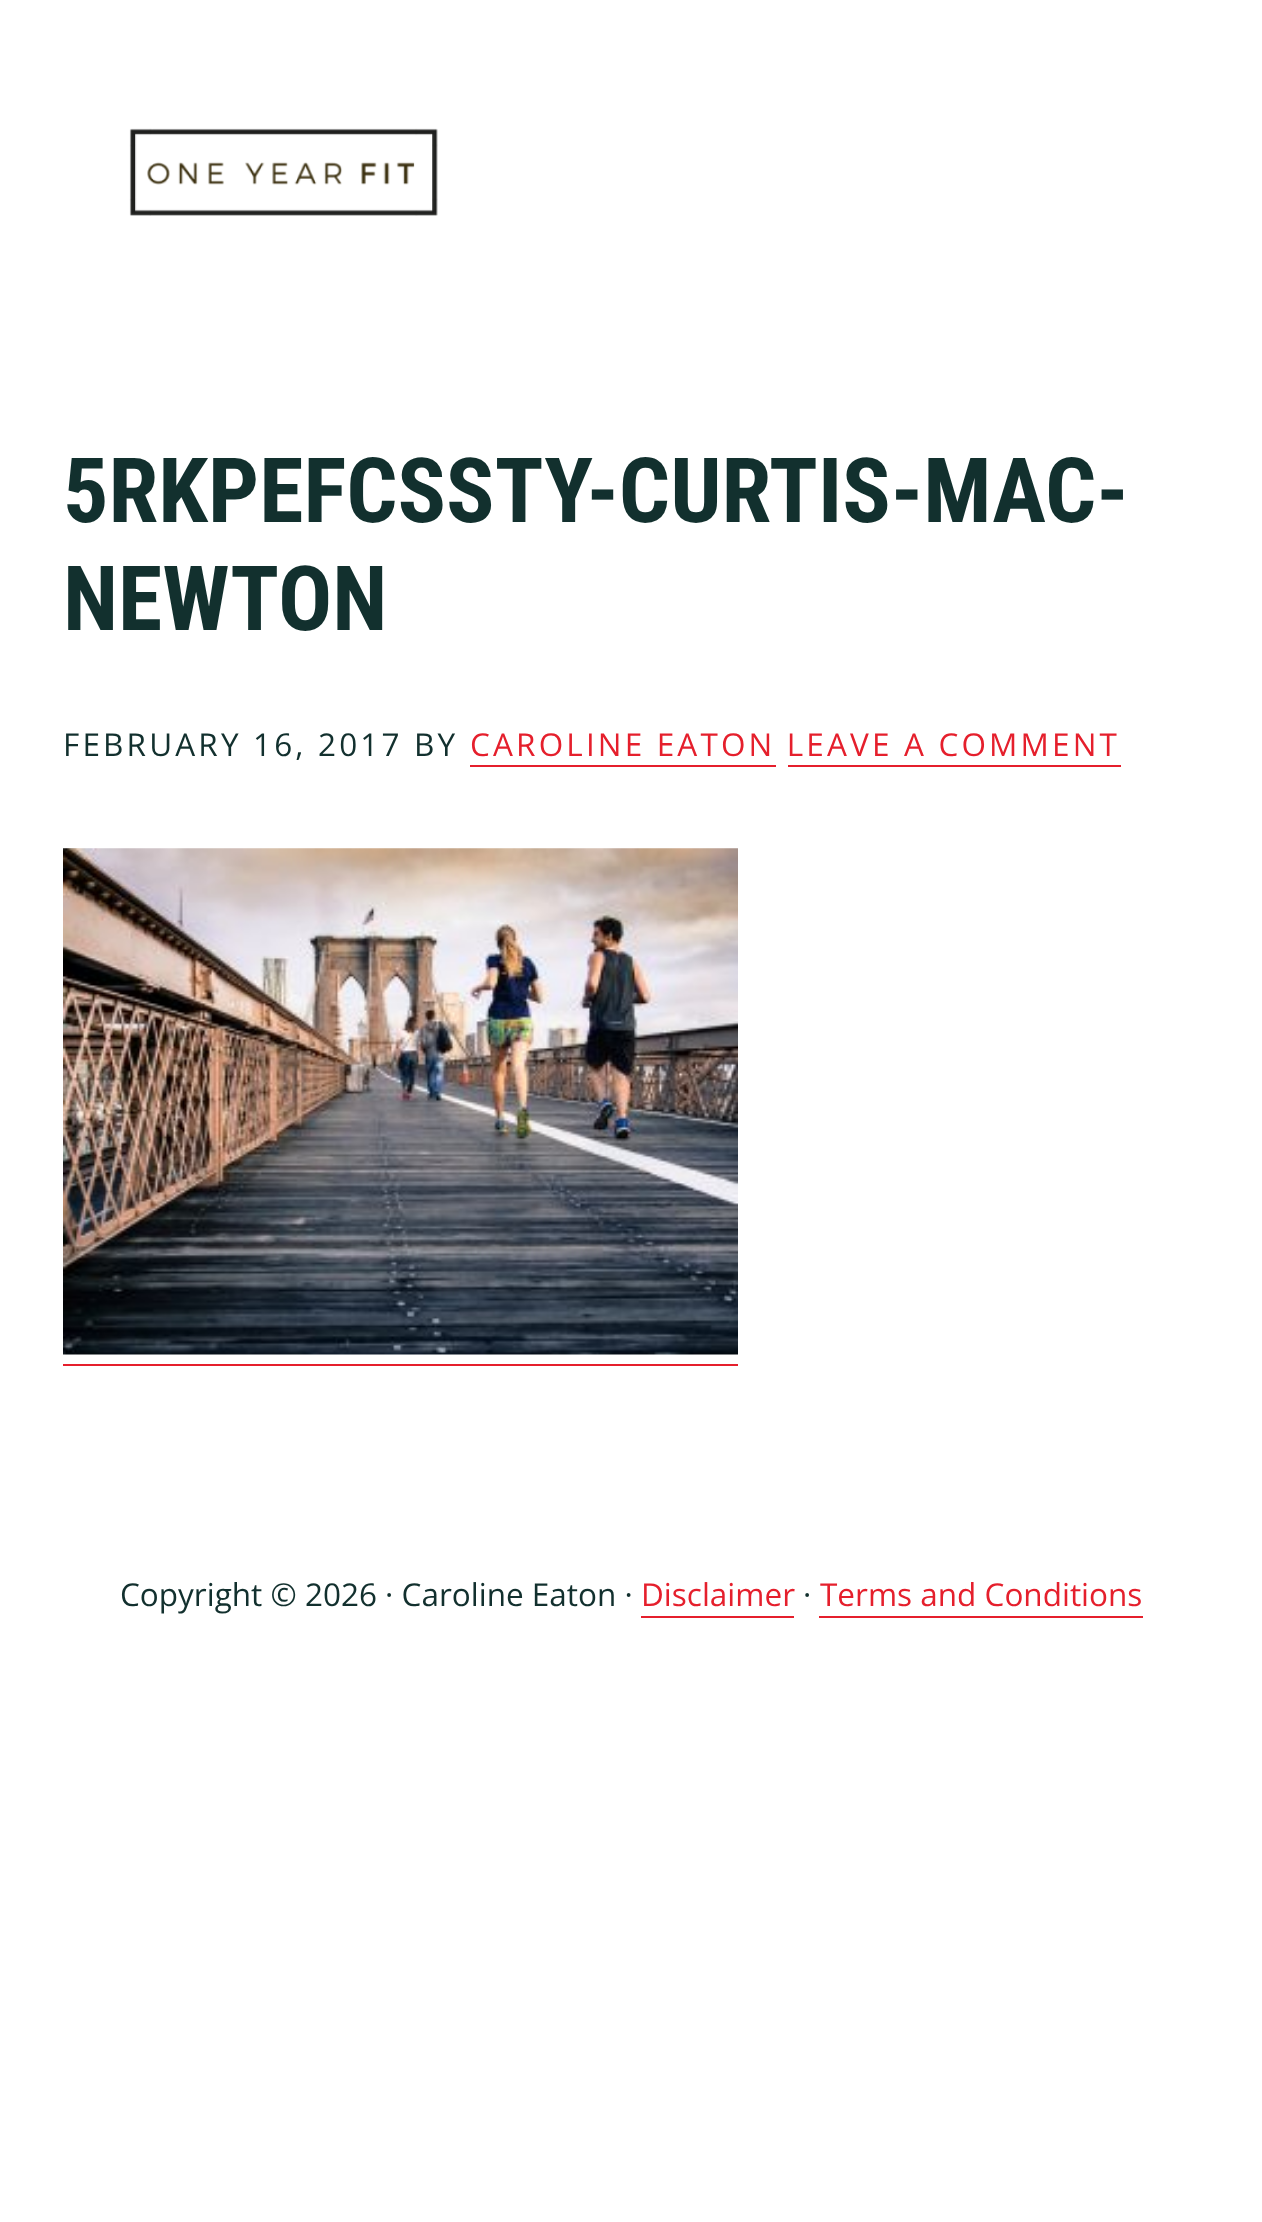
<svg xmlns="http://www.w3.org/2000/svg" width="1262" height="2222">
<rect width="100%" height="100%" fill="#fff"/>
<image x="129" y="128" width="309" height="88" href="media/1.png"/>
<text x="63" y="522" style="font-family:Roboto Condensed;font-size:90px;font-weight:bold;fill:#12302e">5RKPEFCSSTY-CURTIS-MAC-</text>
<text x="63" y="630" style="font-family:Roboto Condensed;font-size:90px;font-weight:bold;fill:#12302e">NEWTON</text>
<text x="63" y="756" style="font-family:Open Sans;font-size:31.5px;letter-spacing:3.15px;fill:#12302e">FEBRUARY 16, 2017 BY</text>
<text x="470" y="756" style="font-family:Open Sans;font-size:31.5px;letter-spacing:3.15px;fill:#e51f2c">CAROLINE EATON LEAVE A COMMENT</text>
<rect x="470" y="765" width="306" height="2" fill="#e51f2c"/>
<rect x="788" y="765" width="333" height="2" fill="#e51f2c"/>
<image x="63" y="848" width="675" height="507" href="media/2.png"/>
<rect x="63" y="1364" width="675" height="2" fill="#e51f2c"/>
<text x="120" y="1606" style="font-family:Open Sans;font-size:31.5px;fill:#12302e">Copyright © 2026 · Caroline Eaton ·</text>
<text x="641" y="1606" style="font-family:Open Sans;font-size:31.5px;fill:#e51f2c">Disclaimer</text>
<rect x="641" y="1616" width="153" height="2" fill="#e51f2c"/>
<text x="803" y="1606" style="font-family:Open Sans;font-size:31.5px;fill:#12302e">·</text>
<text x="820" y="1606" style="font-family:Open Sans;font-size:31.5px;fill:#e51f2c">Terms and Conditions</text>
<rect x="819" y="1616" width="324" height="2" fill="#e51f2c"/>
</svg>
